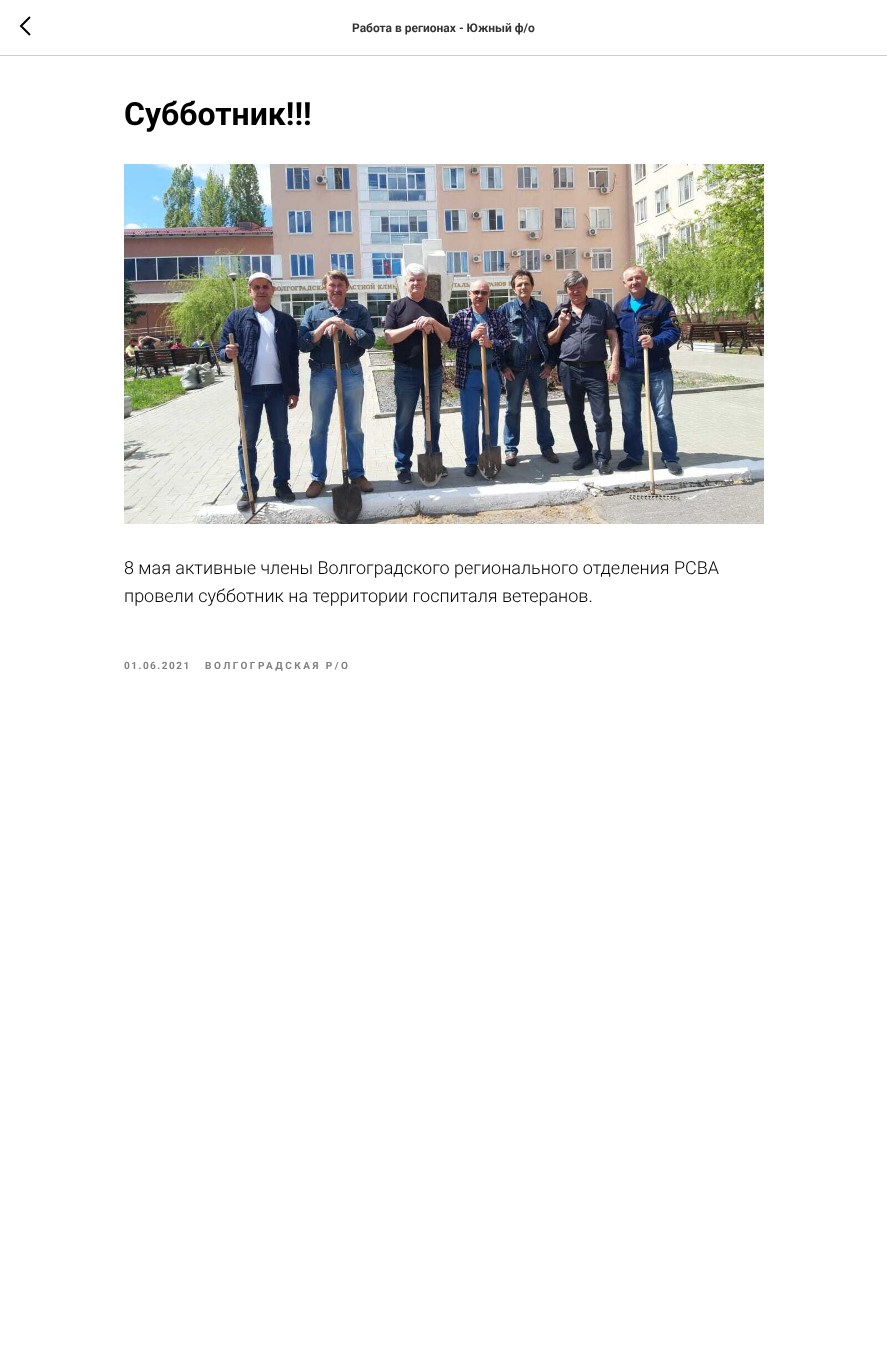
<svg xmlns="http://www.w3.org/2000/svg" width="887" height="1346">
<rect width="100%" height="100%" fill="#fff"/>
<rect y="55" width="887" height="1" fill="#ccc"/>
<path d="M30 35l-9-9l9-9" fill="none" stroke="#000" stroke-width="2"/>
<text x="352" y="32" style="font-family:Roboto;font-size:12px;font-weight:bold;fill:#333">Работа в регионах - Южный ф/о</text>
<text x="124" y="125" style="font-family:Roboto;font-size:32px;font-weight:bold;fill:#000">Субботник!!!</text>
<image x="124" y="164" width="640" height="360" href="media/1.png"/>
<text x="124" y="574" style="font-family:Roboto;font-size:18px;font-weight:300;fill:#000">8 мая активные члены Волгоградского регионального отделения РСВА</text>
<text x="124" y="602" style="font-family:Roboto;font-size:18px;font-weight:300;fill:#000">провели субботник на территории госпиталя ветеранов.</text>
<text x="124" y="669" style="font-family:Roboto;font-size:10px;font-weight:bold;letter-spacing:1.5px;fill:#808080">01.06.2021</text>
<text x="205" y="669" style="font-family:Roboto;font-size:10px;font-weight:bold;letter-spacing:2.5px;fill:#808080">ВОЛГОГРАДСКАЯ Р/О</text>
</svg>
